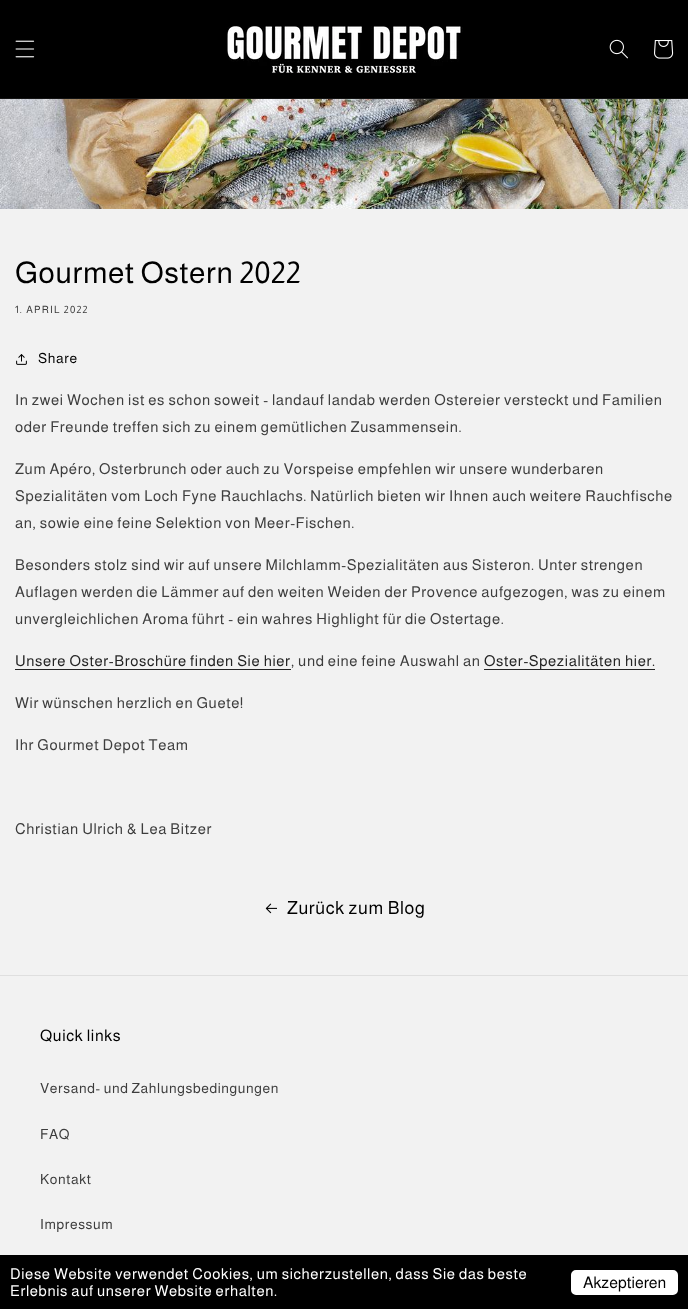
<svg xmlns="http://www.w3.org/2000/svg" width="688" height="1309">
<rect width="100%" height="100%" fill="#f2f2f2"/>
<rect width="688" height="98" fill="#000"/>
<rect y="98" width="688" height="1" fill="#141414"/>
<image x="15" y="40" width="20" height="18" href="media/1.png"/>
<image x="227" y="26" width="236" height="48" href="media/2.png"/>
<image x="609" y="39" width="19" height="20" href="media/3.png"/>
<image x="654" y="40" width="20" height="19" href="media/4.png"/>
<image x="0" y="99" width="688" height="110" href="media/5.png"/>
<text x="15" y="283" style="font-family:Almarai;font-size:30px;letter-spacing:0.6px;fill:#000">Gourmet Ostern 2022</text>
<text x="15" y="313" style="font-family:Almarai;font-size:10px;letter-spacing:1.25px;fill:#3d3d3d">1. APRIL 2022</text>
<image x="16" y="354" width="11" height="11" href="media/6.png"/>
<text x="38" y="363" style="font-family:Almarai;font-size:14px;letter-spacing:0.6px;fill:#000">Share</text>
<text x="15" y="405" style="font-family:Almarai;font-size:15px;letter-spacing:0.6px;fill:#3d3d3d">In zwei Wochen ist es schon soweit - landauf landab werden Ostereier versteckt und Familien</text>
<text x="15" y="432" style="font-family:Almarai;font-size:15px;letter-spacing:0.6px;fill:#3d3d3d">oder Freunde treffen sich zu einem gemütlichen Zusammensein.</text>
<text x="15" y="474" style="font-family:Almarai;font-size:15px;letter-spacing:0.6px;fill:#3d3d3d">Zum Apéro, Osterbrunch oder auch zu Vorspeise empfehlen wir unsere wunderbaren</text>
<text x="15" y="501" style="font-family:Almarai;font-size:15px;letter-spacing:0.6px;fill:#3d3d3d">Spezialitäten vom Loch Fyne Rauchlachs. Natürlich bieten wir Ihnen auch weitere Rauchfische</text>
<text x="15" y="528" style="font-family:Almarai;font-size:15px;letter-spacing:0.6px;fill:#3d3d3d">an, sowie eine feine Selektion von Meer-Fischen.</text>
<text x="15" y="570" style="font-family:Almarai;font-size:15px;letter-spacing:0.6px;fill:#3d3d3d">Besonders stolz sind wir auf unsere Milchlamm-Spezialitäten aus Sisteron. Unter strengen</text>
<text x="15" y="597" style="font-family:Almarai;font-size:15px;letter-spacing:0.6px;fill:#3d3d3d">Auflagen werden die Lämmer auf den weiten Weiden der Provence aufgezogen, was zu einem</text>
<text x="15" y="624" style="font-family:Almarai;font-size:15px;letter-spacing:0.6px;fill:#3d3d3d">unvergleichlichen Aroma führt - ein wahres Highlight für die Ostertage.</text>
<text x="15" y="666" style="font-family:Almarai;font-size:15px;letter-spacing:0.6px;fill:#242424">Unsere Oster-Broschüre finden Sie hier</text>
<rect x="15" y="669" width="276" height="1" fill="#242424"/>
<text x="291" y="666" style="font-family:Almarai;font-size:15px;letter-spacing:0.6px;fill:#3d3d3d">, und eine feine Auswahl an</text>
<rect x="484" y="669" width="171" height="1" fill="#242424"/>
<text x="484" y="666" style="font-family:Almarai;font-size:15px;letter-spacing:0.6px;fill:#242424">Oster-Spezialitäten hier.</text>
<text x="15" y="708" style="font-family:Almarai;font-size:15px;letter-spacing:0.6px;fill:#3d3d3d">Wir wünschen herzlich en Guete!</text>
<text x="15" y="750" style="font-family:Almarai;font-size:15px;letter-spacing:0.6px;fill:#3d3d3d">Ihr Gourmet Depot Team</text>
<text x="15" y="834" style="font-family:Almarai;font-size:15px;letter-spacing:0.6px;fill:#3d3d3d">Christian Ulrich &amp; Lea Bitzer</text>
<image x="265" y="903" width="12" height="11" href="media/7.png"/>
<text x="287" y="914" style="font-family:Almarai;font-size:18px;letter-spacing:0.6px;fill:#000">Zurück zum Blog</text>
<rect y="975" width="688" height="1" fill="#dfdfdf"/>
<text x="40" y="1041" style="font-family:Almarai;font-size:16px;letter-spacing:0.6px;fill:#000">Quick links</text>
<text x="40" y="1093" style="font-family:Almarai;font-size:14px;letter-spacing:0.6px;fill:#3d3d3d">Versand- und Zahlungsbedingungen</text>
<text x="40" y="1139" style="font-family:Almarai;font-size:14px;letter-spacing:0.6px;fill:#3d3d3d">FAQ</text>
<text x="40" y="1184" style="font-family:Almarai;font-size:14px;letter-spacing:0.6px;fill:#3d3d3d">Kontakt</text>
<text x="40" y="1229" style="font-family:Almarai;font-size:14px;letter-spacing:0.6px;fill:#3d3d3d">Impressum</text>
<rect y="1255" width="688" height="54" fill="#000"/>
<text x="10" y="1279" style="font-family:Almarai;font-size:15px;letter-spacing:0.6px;fill:#fff">Diese Website verwendet Cookies, um sicherzustellen, dass Sie das beste</text>
<text x="10" y="1296" style="font-family:Almarai;font-size:15px;letter-spacing:0.6px;fill:#fff">Erlebnis auf unserer Website erhalten.</text>
<rect x="572" y="1271" width="105" height="23" rx="4" fill="#fff" stroke="#fff" stroke-width="2"/>
<text x="583" y="1288" style="font-family:Almarai;font-size:16px;fill:#000">Akzeptieren</text>
</svg>
